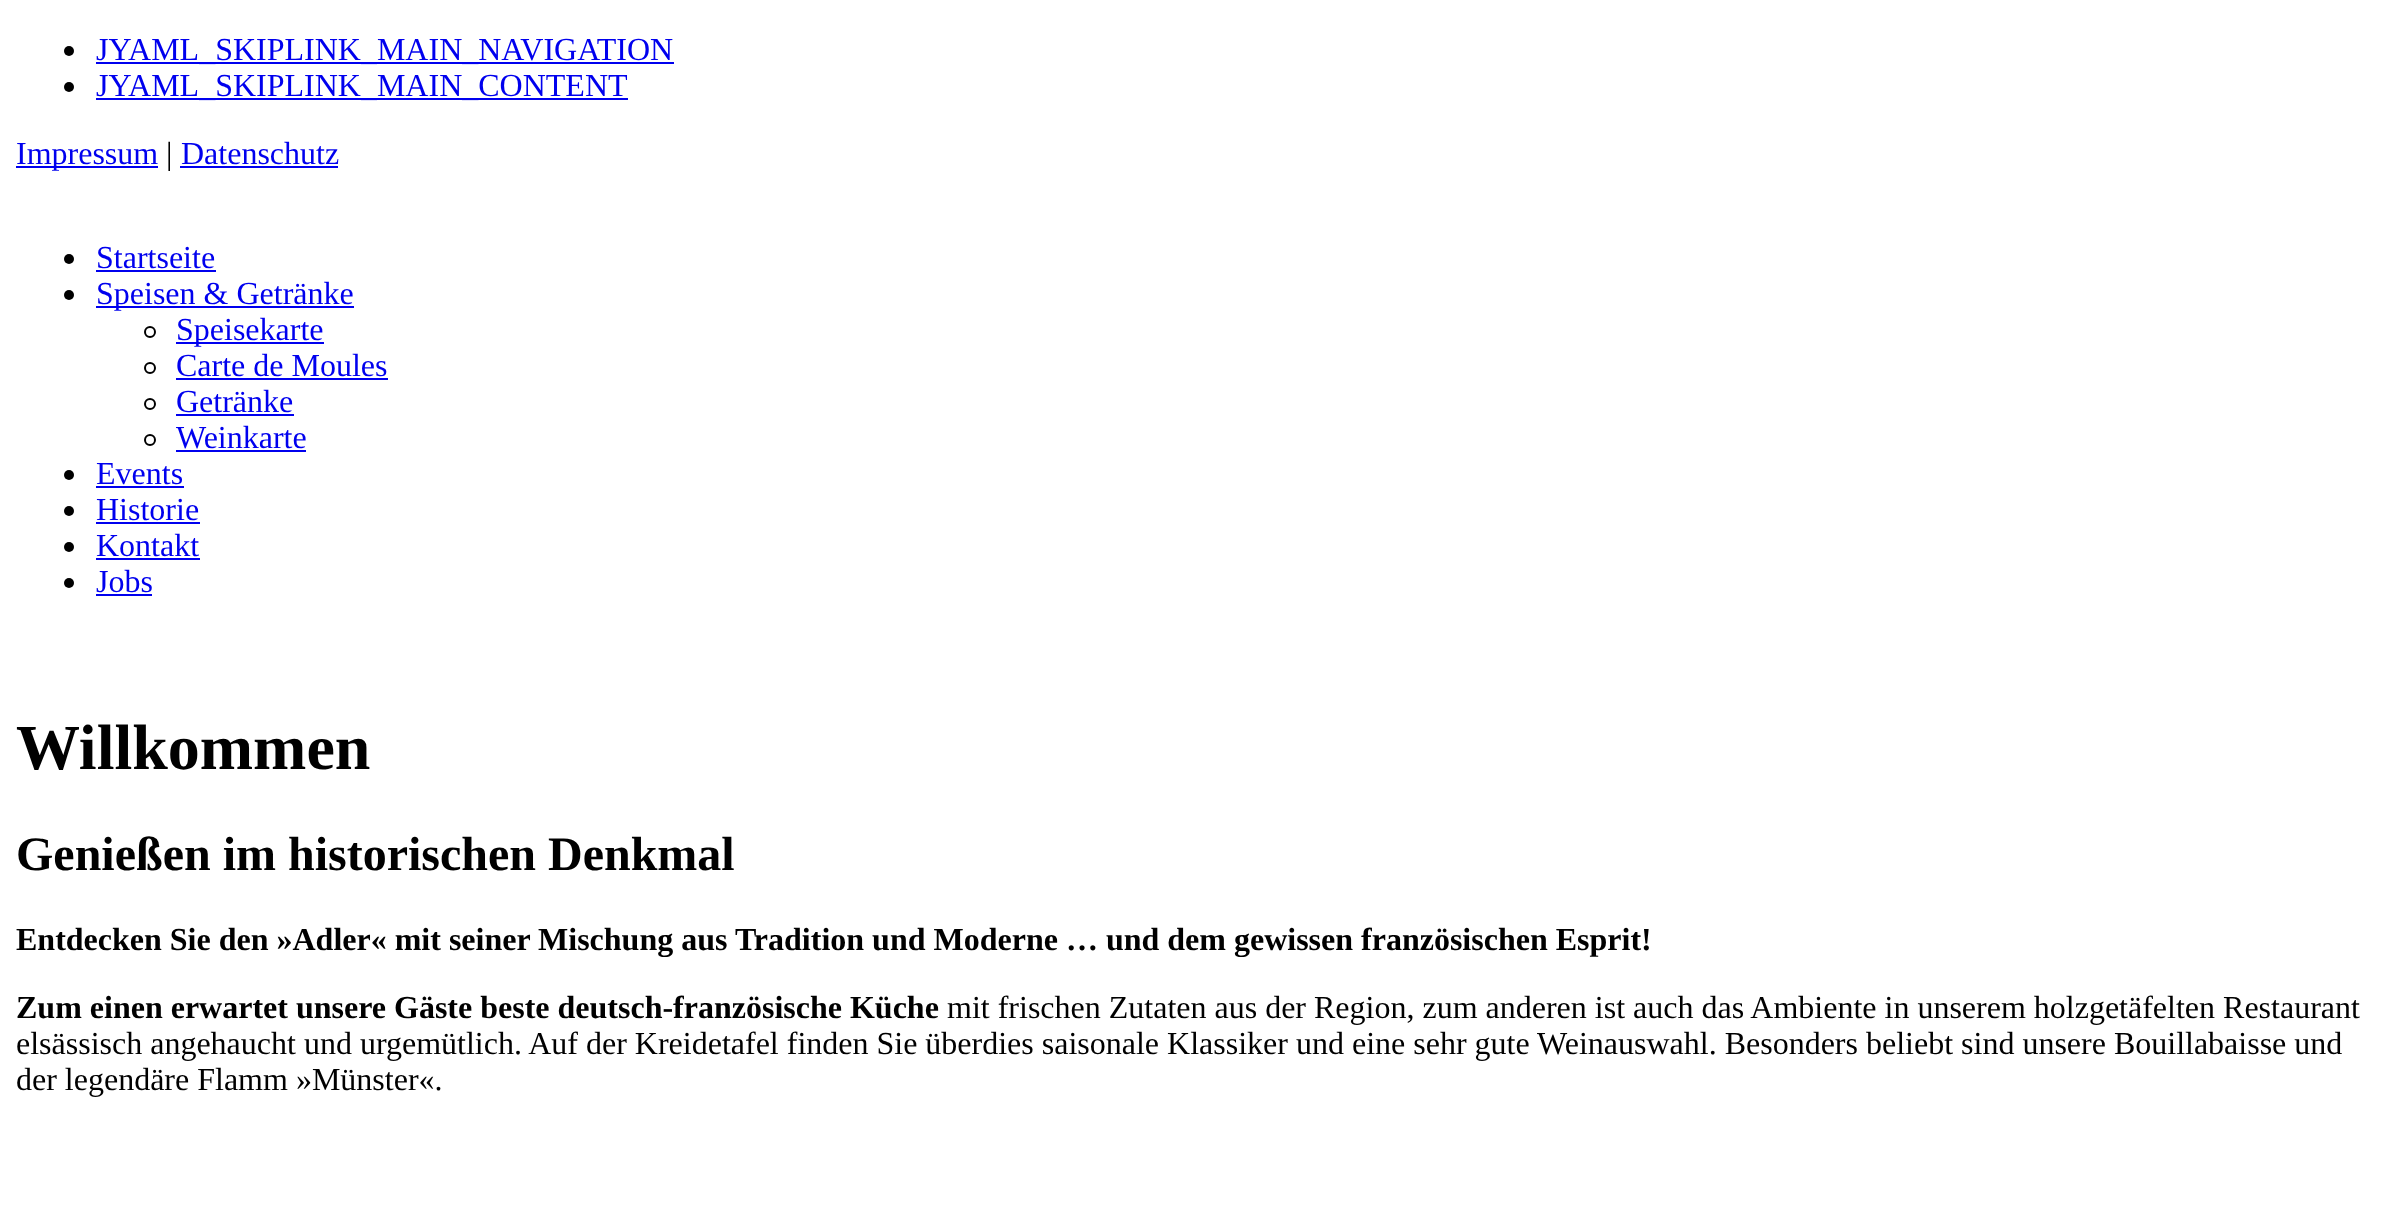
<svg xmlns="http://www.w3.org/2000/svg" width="2384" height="1211">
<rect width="100%" height="100%" fill="#fff"/>
<circle cx="69" cy="51" r="5" fill="#000"/>
<rect x="96" y="62" width="578" height="2" fill="#00e"/>
<text x="96" y="60" style="font-family:Liberation Serif;font-size:32px;fill:#00e">JYAML_SKIPLINK_MAIN_NAVIGATION</text>
<circle cx="69" cy="87" r="5" fill="#000"/>
<rect x="96" y="98" width="532" height="2" fill="#00e"/>
<text x="96" y="96" style="font-family:Liberation Serif;font-size:32px;fill:#00e">JYAML_SKIPLINK_MAIN_CONTENT</text>
<rect x="16" y="166" width="142" height="2" fill="#00e"/>
<text x="16" y="164" style="font-family:Liberation Serif;font-size:32px;fill:#00e">Impressum</text>
<text x="166" y="164" style="font-family:Liberation Serif;font-size:32px;fill:#000">|</text>
<text x="181" y="164" style="font-family:Liberation Serif;font-size:32px;fill:#00e">Datenschutz</text>
<rect x="180" y="166" width="158" height="2" fill="#00e"/>
<circle cx="69" cy="259" r="5" fill="#000"/>
<text x="96" y="268" style="font-family:Liberation Serif;font-size:32px;fill:#00e">Startseite</text>
<rect x="96" y="270" width="120" height="2" fill="#00e"/>
<circle cx="69" cy="295" r="5" fill="#000"/>
<rect x="96" y="306" width="258" height="2" fill="#00e"/>
<text x="96" y="304" style="font-family:Liberation Serif;font-size:32px;fill:#00e">Speisen &amp; Getränke</text>
<circle cx="150" cy="332" r="5" fill="none" stroke="#000" stroke-width="2"/>
<rect x="176" y="342" width="148" height="2" fill="#00e"/>
<text x="176" y="340" style="font-family:Liberation Serif;font-size:32px;fill:#00e">Speisekarte</text>
<circle cx="150" cy="368" r="5" fill="none" stroke="#000" stroke-width="2"/>
<text x="176" y="376" style="font-family:Liberation Serif;font-size:32px;fill:#00e">Carte de Moules</text>
<rect x="176" y="378" width="212" height="2" fill="#00e"/>
<circle cx="150" cy="404" r="5" fill="none" stroke="#000" stroke-width="2"/>
<text x="176" y="412" style="font-family:Liberation Serif;font-size:32px;fill:#00e">Getränke</text>
<rect x="176" y="414" width="118" height="2" fill="#00e"/>
<circle cx="150" cy="440" r="5" fill="none" stroke="#000" stroke-width="2"/>
<text x="176" y="448" style="font-family:Liberation Serif;font-size:32px;fill:#00e">Weinkarte</text>
<rect x="176" y="450" width="130" height="2" fill="#00e"/>
<circle cx="69" cy="475" r="5" fill="#000"/>
<text x="96" y="484" style="font-family:Liberation Serif;font-size:32px;fill:#00e">Events</text>
<rect x="96" y="486" width="88" height="2" fill="#00e"/>
<circle cx="69" cy="511" r="5" fill="#000"/>
<text x="96" y="520" style="font-family:Liberation Serif;font-size:32px;fill:#00e">Historie</text>
<rect x="96" y="522" width="104" height="2" fill="#00e"/>
<circle cx="69" cy="547" r="5" fill="#000"/>
<text x="96" y="556" style="font-family:Liberation Serif;font-size:32px;fill:#00e">Kontakt</text>
<rect x="96" y="558" width="104" height="2" fill="#00e"/>
<circle cx="69" cy="583" r="5" fill="#000"/>
<text x="96" y="592" style="font-family:Liberation Serif;font-size:32px;fill:#00e">Jobs</text>
<rect x="96" y="594" width="56" height="2" fill="#00e"/>
<text x="16" y="769" style="font-family:Liberation Serif;font-size:64px;font-weight:bold;fill:#000">Willkommen</text>
<text x="16" y="870" style="font-family:Liberation Serif;font-size:48px;font-weight:bold;fill:#000">Genießen im historischen Denkmal</text>
<text x="16" y="950" style="font-family:Liberation Serif;font-size:32px;font-weight:bold;fill:#000">Entdecken Sie den »Adler« mit seiner Mischung aus Tradition und Moderne … und dem gewissen französischen Esprit!</text>
<text x="16" y="1018" style="font-family:Liberation Serif;font-size:32px;font-weight:bold;fill:#000">Zum einen erwartet unsere Gäste beste deutsch-französische Küche</text>
<text x="947" y="1018" style="font-family:Liberation Serif;font-size:32px;fill:#000">mit frischen Zutaten aus der Region, zum anderen ist auch das Ambiente in unserem holzgetäfelten Restaurant</text>
<text x="16" y="1054" style="font-family:Liberation Serif;font-size:32px;fill:#000">elsässisch angehaucht und urgemütlich. Auf der Kreidetafel finden Sie überdies saisonale Klassiker und eine sehr gute Weinauswahl. Besonders beliebt sind unsere Bouillabaisse und</text>
<text x="16" y="1090" style="font-family:Liberation Serif;font-size:32px;fill:#000">der legendäre Flamm »Münster«.</text>
</svg>
